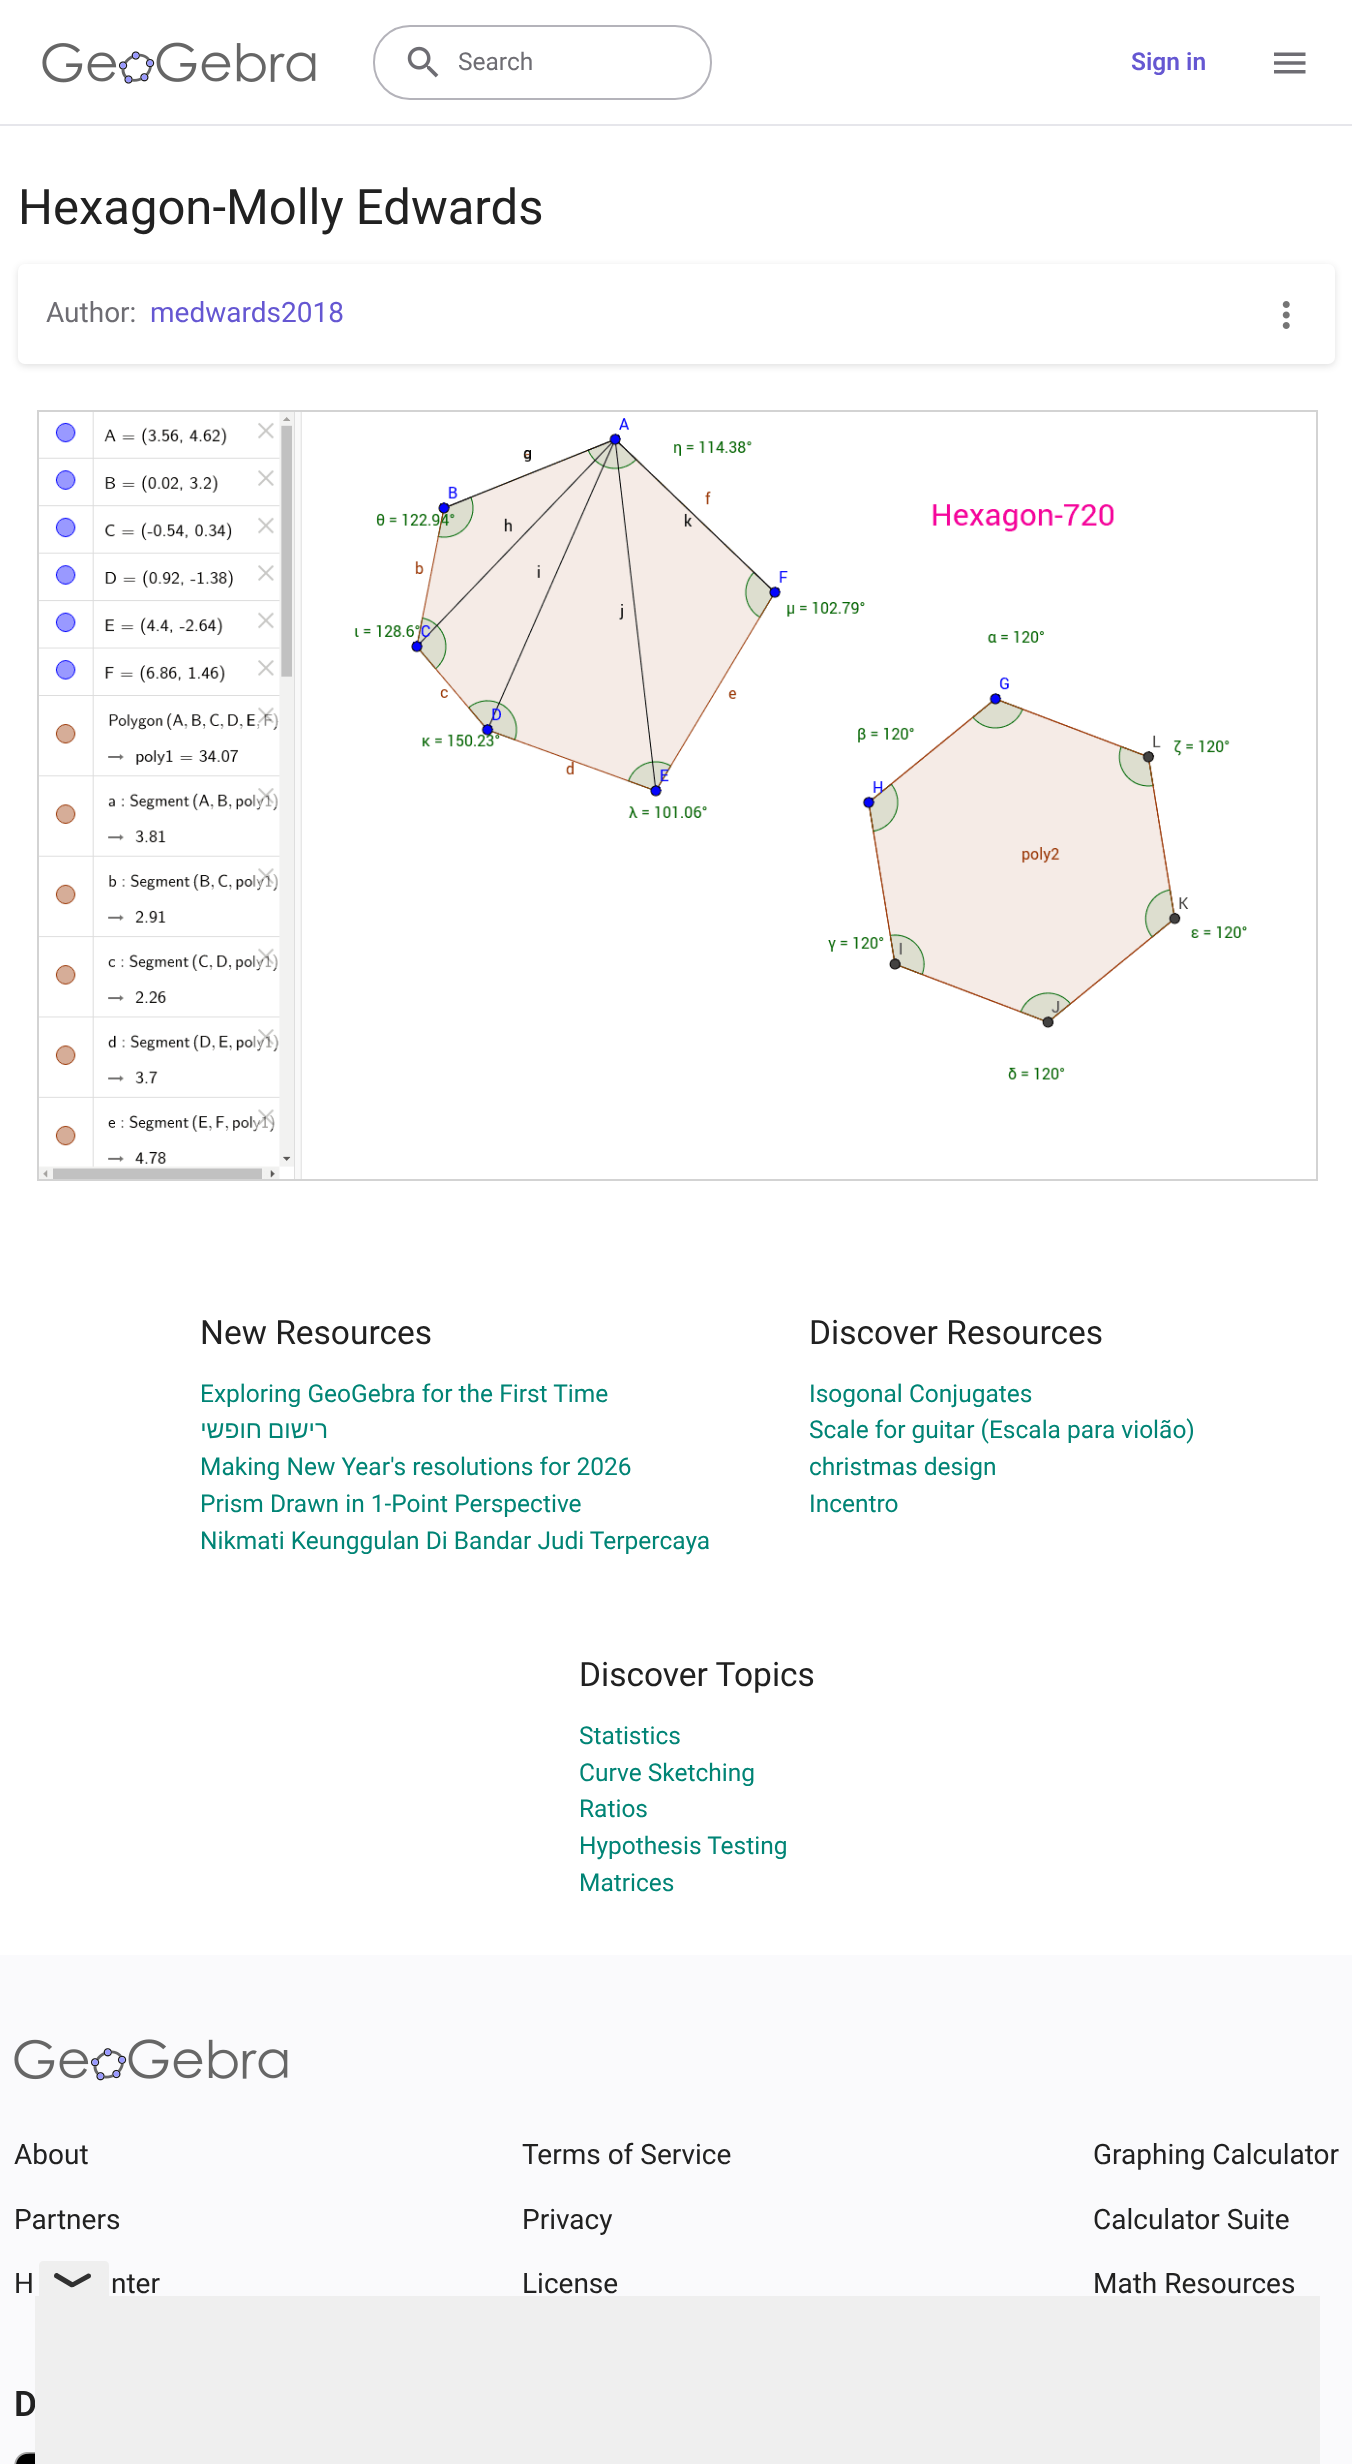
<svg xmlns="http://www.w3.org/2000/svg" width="1352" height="2464">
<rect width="100%" height="100%" fill="#fff"/>
<rect y="124" width="1352" height="2" fill="#e6e6eb"/>
<image x="42" y="42" width="274" height="42" href="media/1.png"/>
<rect x="374" y="26" width="337" height="73" rx="36" fill="none" stroke="#b4b3ba" stroke-width="2"/>
<image x="407" y="46" width="32" height="32" href="media/2.png"/>
<text x="458" y="70" style="font-family:Roboto;font-size:24.5px;fill:#6e6d73">Search</text>
<text x="1131" y="70" style="font-family:Roboto;font-size:24.5px;font-weight:600;fill:#6557d2">Sign in</text>
<image x="1274" y="52" width="32" height="22" href="media/3.png"/>
<text x="18" y="224" style="font-family:Roboto;font-size:49px;fill:#212121">Hexagon-Molly Edwards</text>
<rect x="18" y="266" width="1317" height="100" rx="7" fill="#1c1c1f24" filter="blur(3.5px)"/>
<rect x="18" y="264" width="1317" height="100" rx="7" fill="#fff"/>
<text x="46" y="322" style="font-family:Roboto;font-size:28px;fill:#6e6d73">Author:</text>
<text x="150" y="322" style="font-family:Roboto;font-size:28px;fill:#6557d2">medwards2018</text>
<image x="1282" y="301" width="8" height="28" href="media/4.png"/>
<image x="39" y="412" width="1208" height="767" href="media/5.png"/>
<rect x="38" y="411" width="1279" height="769" fill="none" stroke="#d3d3d3" stroke-width="2"/>
<text x="200" y="1344" style="font-family:Roboto;font-size:33.5px;fill:#212121">New Resources</text>
<text x="200" y="1402" style="font-family:Roboto;font-size:24.5px;fill:#008475">Exploring GeoGebra for the First Time</text>
<text x="328" y="1438" word-spacing="-1" style="font-family:Liberation Sans;font-size:24.5px;direction:rtl;fill:#008475">רישום חופשי</text>
<text x="200" y="1475" style="font-family:Roboto;font-size:24.5px;fill:#008475">Making New Year's resolutions for 2026</text>
<text x="200" y="1512" style="font-family:Roboto;font-size:24.5px;fill:#008475">Prism Drawn in 1-Point Perspective</text>
<text x="200" y="1549" style="font-family:Roboto;font-size:24.5px;fill:#008475">Nikmati Keunggulan Di Bandar Judi Terpercaya</text>
<text x="809" y="1344" style="font-family:Roboto;font-size:33.5px;fill:#212121">Discover Resources</text>
<text x="809" y="1402" style="font-family:Roboto;font-size:24.5px;fill:#008475">Isogonal Conjugates</text>
<text x="809" y="1438" style="font-family:Roboto;font-size:24.5px;fill:#008475">Scale for guitar (Escala para violão)</text>
<text x="809" y="1475" style="font-family:Roboto;font-size:24.5px;fill:#008475">christmas design</text>
<text x="809" y="1512" style="font-family:Roboto;font-size:24.5px;fill:#008475">Incentro</text>
<text x="579" y="1686" style="font-family:Roboto;font-size:33.5px;fill:#212121">Discover Topics</text>
<text x="579" y="1744" style="font-family:Roboto;font-size:24.5px;fill:#008475">Statistics</text>
<text x="579" y="1781" style="font-family:Roboto;font-size:24.5px;fill:#008475">Curve Sketching</text>
<text x="579" y="1817" style="font-family:Roboto;font-size:24.5px;fill:#008475">Ratios</text>
<text x="579" y="1854" style="font-family:Roboto;font-size:24.5px;fill:#008475">Hypothesis Testing</text>
<text x="579" y="1891" style="font-family:Roboto;font-size:24.5px;fill:#008475">Matrices</text>
<rect y="1955" width="1352" height="509" fill="#fafafc"/>
<image x="14" y="2039" width="274" height="42" href="media/6.png"/>
<text x="14" y="2164" style="font-family:Roboto;font-size:28px;fill:#212121">About</text>
<text x="14" y="2229" style="font-family:Roboto;font-size:28px;fill:#212121">Partners</text>
<text x="14" y="2293" style="font-family:Roboto;font-size:28px;fill:#212121">H</text>
<text x="111" y="2293" style="font-family:Roboto;font-size:28px;fill:#212121">nter</text>
<text x="522" y="2164" style="font-family:Roboto;font-size:28px;fill:#212121">Terms of Service</text>
<text x="522" y="2229" style="font-family:Roboto;font-size:28px;fill:#212121">Privacy</text>
<text x="522" y="2293" style="font-family:Roboto;font-size:28px;fill:#212121">License</text>
<text x="1093" y="2164" style="font-family:Roboto;font-size:28px;fill:#212121">Graphing Calculator</text>
<text x="1093" y="2229" style="font-family:Roboto;font-size:28px;fill:#212121">Calculator Suite</text>
<text x="1093" y="2293" style="font-family:Roboto;font-size:28px;fill:#212121">Math Resources</text>
<text x="14" y="2416" style="font-family:Roboto;font-size:35px;font-weight:600;fill:#212121">D</text>
<image x="14" y="2452" width="21" height="12" href="media/7.png"/>
<path d="M43 2261h62c2 0 4 2 4 4v31h-70v-31c0-2 2-4 4-4z" fill="#efefef"/>
<path d="M58 2273.5l16 9.5c1.5 2.5-1 5-3.5 4l-16-9.5c-1.5-2.5 1-5.5 3.5-4z" fill="#313131"/>
<path d="M72 2282.5l16-9c3-.5 4 3 2 4.5l-16.5 9c-2.5 .5-4-3.5-1.5-4.5z" fill="#313131"/>
<rect x="35" y="2296" width="1285" height="168" fill="#efefef"/>
</svg>
